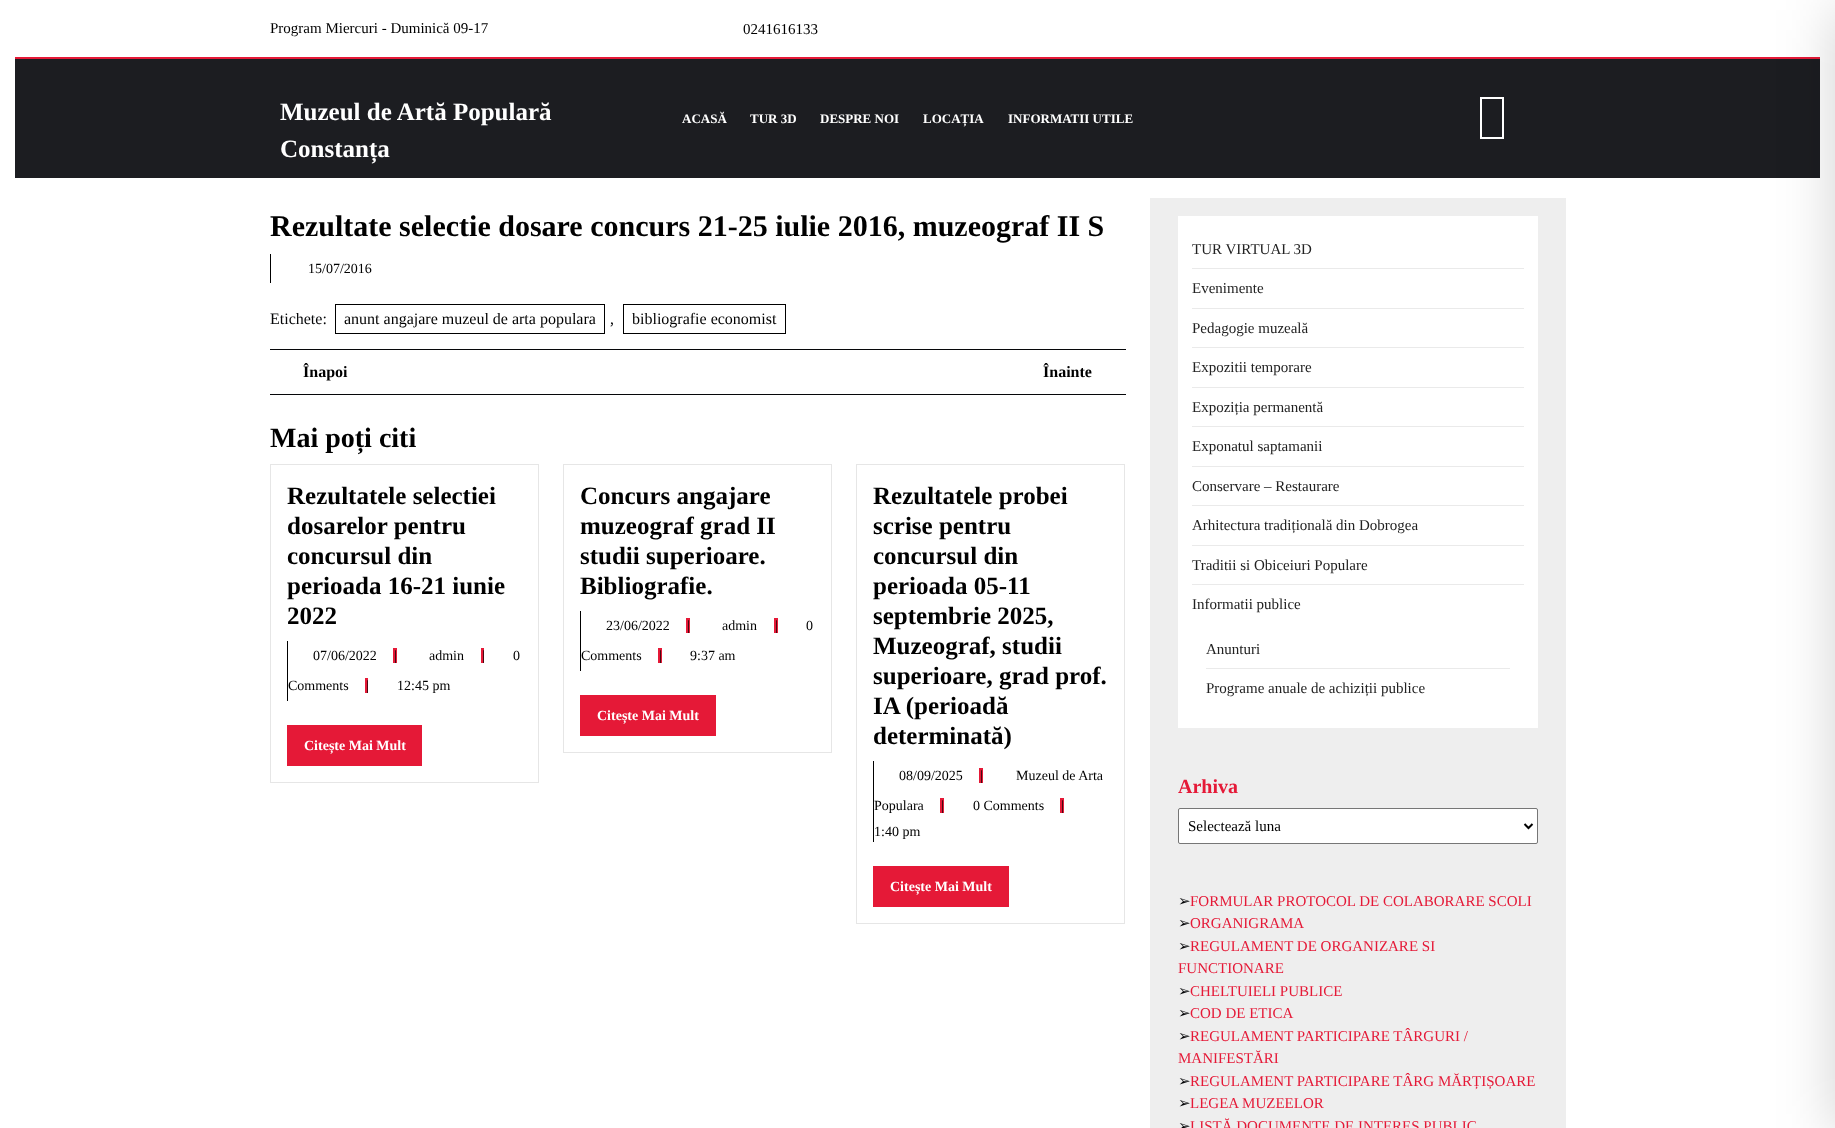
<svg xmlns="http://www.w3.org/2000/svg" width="1835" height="1128">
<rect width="100%" height="100%" fill="#fff"/>
<rect x="15" y="57" width="1805" height="2" fill="#e51937"/>
<text x="270" y="33" style="font-family:Liberation Serif;font-size:15px;fill:#000">Program Miercuri - Duminică 09-17</text>
<text x="743" y="34" style="font-family:Liberation Serif;font-size:15px;fill:#000">0241616133</text>
<rect x="15" y="59" width="1805" height="119" fill="#1c1d21"/>
<text x="280" y="120" style="font-family:Liberation Serif;font-size:25px;font-weight:bold;fill:#fff">Muzeul de Artă Populară</text>
<text x="280" y="157" style="font-family:Liberation Serif;font-size:25px;font-weight:bold;fill:#fff">Constanța</text>
<text x="682" y="123" style="font-family:Liberation Serif;font-size:13px;font-weight:bold;fill:#fff">ACASĂ</text>
<text x="750" y="123" style="font-family:Liberation Serif;font-size:13px;font-weight:bold;fill:#fff">TUR 3D</text>
<text x="820" y="123" style="font-family:Liberation Serif;font-size:13px;font-weight:bold;fill:#fff">DESPRE NOI</text>
<text x="923" y="123" style="font-family:Liberation Serif;font-size:13px;font-weight:bold;fill:#fff">LOCAȚIA</text>
<text x="1008" y="123" style="font-family:Liberation Serif;font-size:13px;font-weight:bold;fill:#fff">INFORMATII UTILE</text>
<rect x="1481" y="98" width="22" height="40" fill="none" stroke="#fff" stroke-width="2"/>
<rect x="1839" y="10" width="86" height="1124" fill="#00000033" filter="blur(30px)"/>
<text x="270" y="236" style="font-family:Liberation Serif;font-size:30px;font-weight:bold;fill:#000">Rezultate selectie dosare concurs 21-25 iulie 2016, muzeograf II S</text>
<rect x="270" y="254" width="1" height="29" fill="#000"/>
<text x="308" y="273" style="font-family:Liberation Serif;font-size:14px;fill:#000">15/07/2016</text>
<text x="270" y="324" style="font-family:Liberation Serif;font-size:16px;fill:#060709">Etichete:</text>
<rect x="335.5" y="304.5" width="269" height="29" fill="none" stroke="#000"/>
<text x="344" y="324" style="font-family:Liberation Serif;font-size:16px;fill:#000">anunt angajare muzeul de arta populara</text>
<text x="610" y="324" style="font-family:Liberation Serif;font-size:16px;fill:#060709">,</text>
<rect x="623.5" y="304.5" width="162" height="29" fill="none" stroke="#000"/>
<text x="632" y="324" style="font-family:Liberation Serif;font-size:16px;fill:#000">bibliografie economist</text>
<rect x="270" y="349" width="856" height="1" fill="#060709"/>
<text x="303" y="377" style="font-family:Liberation Serif;font-size:16px;font-weight:bold;fill:#000">Înapoi</text>
<text x="1043" y="377" style="font-family:Liberation Serif;font-size:16px;font-weight:bold;fill:#000">Înainte</text>
<rect x="270" y="394" width="856" height="1" fill="#060709"/>
<text x="270" y="447" style="font-family:Liberation Serif;font-size:28px;font-weight:bold;fill:#000">Mai poți citi</text>
<rect x="270.5" y="464.5" width="268" height="318" fill="none" stroke="#e6e6e6"/>
<text x="287" y="504" style="font-family:Liberation Serif;font-size:25px;font-weight:bold;fill:#000">Rezultatele selectiei</text>
<text x="287" y="534" style="font-family:Liberation Serif;font-size:25px;font-weight:bold;fill:#000">dosarelor pentru</text>
<text x="287" y="564" style="font-family:Liberation Serif;font-size:25px;font-weight:bold;fill:#000">concursul din</text>
<text x="287" y="594" style="font-family:Liberation Serif;font-size:25px;font-weight:bold;fill:#000">perioada 16-21 iunie</text>
<text x="287" y="624" style="font-family:Liberation Serif;font-size:25px;font-weight:bold;fill:#000">2022</text>
<rect x="287" y="641" width="1" height="60" fill="#000"/>
<text x="313" y="660" style="font-family:Liberation Serif;font-size:14px;fill:#000">07/06/2022</text>
<rect x="393" y="648" width="4" height="15" fill="#e51937"/>
<text x="394" y="660" style="font-family:Liberation Serif;font-size:14px;fill:#000">|</text>
<text x="429" y="660" style="font-family:Liberation Serif;font-size:14px;fill:#000">admin</text>
<rect x="481" y="648" width="3" height="15" fill="#e51937"/>
<text x="482" y="660" style="font-family:Liberation Serif;font-size:14px;fill:#000">|</text>
<text x="513" y="660" style="font-family:Liberation Serif;font-size:14px;fill:#000">0</text>
<text x="288" y="690" style="font-family:Liberation Serif;font-size:14px;fill:#000">Comments</text>
<rect x="365" y="678" width="3" height="15" fill="#e51937"/>
<text x="366" y="690" style="font-family:Liberation Serif;font-size:14px;fill:#000">|</text>
<text x="397" y="690" style="font-family:Liberation Serif;font-size:14px;fill:#000">12:45 pm</text>
<rect x="287" y="725" width="135" height="41" fill="#e51937"/>
<text x="304" y="750" style="font-family:Liberation Serif;font-size:14px;font-weight:bold;fill:#fff">Citește Mai Mult</text>
<rect x="563.5" y="464.5" width="268" height="288" fill="none" stroke="#e6e6e6"/>
<text x="580" y="504" style="font-family:Liberation Serif;font-size:25px;font-weight:bold;fill:#000">Concurs angajare</text>
<text x="580" y="534" style="font-family:Liberation Serif;font-size:25px;font-weight:bold;fill:#000">muzeograf grad II</text>
<text x="580" y="564" style="font-family:Liberation Serif;font-size:25px;font-weight:bold;fill:#000">studii superioare.</text>
<text x="580" y="594" style="font-family:Liberation Serif;font-size:25px;font-weight:bold;fill:#000">Bibliografie.</text>
<rect x="580" y="611" width="1" height="60" fill="#000"/>
<text x="606" y="630" style="font-family:Liberation Serif;font-size:14px;fill:#000">23/06/2022</text>
<rect x="686" y="618" width="4" height="15" fill="#e51937"/>
<text x="687" y="630" style="font-family:Liberation Serif;font-size:14px;fill:#000">|</text>
<text x="722" y="630" style="font-family:Liberation Serif;font-size:14px;fill:#000">admin</text>
<rect x="774" y="618" width="4" height="15" fill="#e51937"/>
<text x="775" y="630" style="font-family:Liberation Serif;font-size:14px;fill:#000">|</text>
<text x="806" y="630" style="font-family:Liberation Serif;font-size:14px;fill:#000">0</text>
<text x="581" y="660" style="font-family:Liberation Serif;font-size:14px;fill:#000">Comments</text>
<rect x="658" y="648" width="4" height="15" fill="#e51937"/>
<text x="659" y="660" style="font-family:Liberation Serif;font-size:14px;fill:#000">|</text>
<text x="690" y="660" style="font-family:Liberation Serif;font-size:14px;fill:#000">9:37 am</text>
<rect x="580" y="695" width="136" height="41" fill="#e51937"/>
<text x="597" y="720" style="font-family:Liberation Serif;font-size:14px;font-weight:bold;fill:#fff">Citește Mai Mult</text>
<rect x="856.5" y="464.5" width="268" height="459" fill="none" stroke="#e6e6e6"/>
<text x="873" y="504" style="font-family:Liberation Serif;font-size:25px;font-weight:bold;fill:#000">Rezultatele probei</text>
<text x="873" y="534" style="font-family:Liberation Serif;font-size:25px;font-weight:bold;fill:#000">scrise pentru</text>
<text x="873" y="564" style="font-family:Liberation Serif;font-size:25px;font-weight:bold;fill:#000">concursul din</text>
<text x="873" y="594" style="font-family:Liberation Serif;font-size:25px;font-weight:bold;fill:#000">perioada 05-11</text>
<text x="873" y="624" style="font-family:Liberation Serif;font-size:25px;font-weight:bold;fill:#000">septembrie 2025,</text>
<text x="873" y="654" style="font-family:Liberation Serif;font-size:25px;font-weight:bold;fill:#000">Muzeograf, studii</text>
<text x="873" y="684" style="font-family:Liberation Serif;font-size:25px;font-weight:bold;fill:#000">superioare, grad prof.</text>
<text x="873" y="714" style="font-family:Liberation Serif;font-size:25px;font-weight:bold;fill:#000">IA (perioadă</text>
<text x="873" y="744" style="font-family:Liberation Serif;font-size:25px;font-weight:bold;fill:#000">determinată)</text>
<rect x="873" y="761" width="1" height="81" fill="#000"/>
<text x="899" y="780" style="font-family:Liberation Serif;font-size:14px;fill:#000">08/09/2025</text>
<rect x="979" y="768" width="4" height="15" fill="#e51937"/>
<text x="980" y="780" style="font-family:Liberation Serif;font-size:14px;fill:#000">|</text>
<text x="1016" y="780" style="font-family:Liberation Serif;font-size:14px;fill:#000">Muzeul de Arta</text>
<text x="874" y="810" style="font-family:Liberation Serif;font-size:14px;fill:#000">Populara</text>
<rect x="940" y="798" width="4" height="15" fill="#e51937"/>
<text x="941" y="810" style="font-family:Liberation Serif;font-size:14px;fill:#000">|</text>
<text x="973" y="810" style="font-family:Liberation Serif;font-size:14px;fill:#000">0 Comments</text>
<rect x="1060" y="798" width="4" height="15" fill="#e51937"/>
<text x="1061" y="810" style="font-family:Liberation Serif;font-size:14px;fill:#000">|</text>
<text x="874" y="836" style="font-family:Liberation Serif;font-size:14px;fill:#000">1:40 pm</text>
<rect x="873" y="866" width="136" height="41" fill="#e51937"/>
<text x="890" y="891" style="font-family:Liberation Serif;font-size:14px;font-weight:bold;fill:#fff">Citește Mai Mult</text>
<rect x="1150" y="198" width="416" height="930" fill="#eee"/>
<rect x="1178" y="216" width="360" height="512" fill="#fff"/>
<rect x="1192" y="268" width="332" height="1" fill="#eaeaea"/>
<text x="1192" y="254" style="font-family:Liberation Serif;font-size:15px;fill:#222">TUR VIRTUAL 3D</text>
<rect x="1192" y="308" width="332" height="1" fill="#eaeaea"/>
<text x="1192" y="293" style="font-family:Liberation Serif;font-size:15px;fill:#222">Evenimente</text>
<rect x="1192" y="347" width="332" height="1" fill="#eaeaea"/>
<text x="1192" y="333" style="font-family:Liberation Serif;font-size:15px;fill:#222">Pedagogie muzeală</text>
<rect x="1192" y="387" width="332" height="1" fill="#eaeaea"/>
<text x="1192" y="372" style="font-family:Liberation Serif;font-size:15px;fill:#222">Expozitii temporare</text>
<rect x="1192" y="426" width="332" height="1" fill="#eaeaea"/>
<text x="1192" y="412" style="font-family:Liberation Serif;font-size:15px;fill:#222">Expoziția permanentă</text>
<rect x="1192" y="466" width="332" height="1" fill="#eaeaea"/>
<text x="1192" y="451" style="font-family:Liberation Serif;font-size:15px;fill:#222">Exponatul saptamanii</text>
<rect x="1192" y="505" width="332" height="1" fill="#eaeaea"/>
<text x="1192" y="491" style="font-family:Liberation Serif;font-size:15px;fill:#222">Conservare – Restaurare</text>
<rect x="1192" y="545" width="332" height="1" fill="#eaeaea"/>
<text x="1192" y="530" style="font-family:Liberation Serif;font-size:15px;fill:#222">Arhitectura tradițională din Dobrogea</text>
<rect x="1192" y="584" width="332" height="1" fill="#eaeaea"/>
<text x="1192" y="570" style="font-family:Liberation Serif;font-size:15px;fill:#222">Traditii si Obiceiuri Populare</text>
<text x="1192" y="609" style="font-family:Liberation Serif;font-size:15px;fill:#222">Informatii publice</text>
<rect x="1206" y="668" width="304" height="1" fill="#eaeaea"/>
<text x="1206" y="654" style="font-family:Liberation Serif;font-size:15px;fill:#222">Anunturi</text>
<text x="1206" y="693" style="font-family:Liberation Serif;font-size:15px;fill:#222">Programe anuale de achiziții publice</text>
<text x="1178" y="793" style="font-family:Liberation Serif;font-size:20px;font-weight:bold;fill:#e51937">Arhiva</text>
<rect x="1178.5" y="808.5" width="359" height="35" rx="1.5" fill="#fff" stroke="#767676"/>
<path d="M1524.5 824l4 4l4-4" fill="none" stroke="#000" stroke-width="2"/>
<text x="1188" y="831" style="font-family:Liberation Serif;font-size:15px;fill:#000">Selectează luna</text>
<text x="1178" y="906" style="font-family:DejaVu Sans;font-size:15px;fill:#060709">➢</text>
<text x="1190" y="906" style="font-family:Liberation Serif;font-size:15px;fill:#e51937">FORMULAR PROTOCOL DE COLABORARE SCOLI</text>
<text x="1178" y="928" style="font-family:DejaVu Sans;font-size:15px;fill:#060709">➢</text>
<text x="1190" y="928" style="font-family:Liberation Serif;font-size:15px;fill:#e51937">ORGANIGRAMA</text>
<text x="1178" y="951" style="font-family:DejaVu Sans;font-size:15px;fill:#060709">➢</text>
<text x="1190" y="951" style="font-family:Liberation Serif;font-size:15px;fill:#e51937">REGULAMENT DE ORGANIZARE SI</text>
<text x="1178" y="973" style="font-family:Liberation Serif;font-size:15px;fill:#e51937">FUNCTIONARE</text>
<text x="1178" y="996" style="font-family:DejaVu Sans;font-size:15px;fill:#060709">➢</text>
<text x="1190" y="996" style="font-family:Liberation Serif;font-size:15px;fill:#e51937">CHELTUIELI PUBLICE</text>
<text x="1178" y="1018" style="font-family:DejaVu Sans;font-size:15px;fill:#060709">➢</text>
<text x="1190" y="1018" style="font-family:Liberation Serif;font-size:15px;fill:#e51937">COD DE ETICA</text>
<text x="1178" y="1041" style="font-family:DejaVu Sans;font-size:15px;fill:#060709">➢</text>
<text x="1190" y="1041" style="font-family:Liberation Serif;font-size:15px;fill:#e51937">REGULAMENT PARTICIPARE TÂRGURI /</text>
<text x="1178" y="1063" style="font-family:Liberation Serif;font-size:15px;fill:#e51937">MANIFESTĂRI</text>
<text x="1178" y="1086" style="font-family:DejaVu Sans;font-size:15px;fill:#060709">➢</text>
<text x="1190" y="1086" style="font-family:Liberation Serif;font-size:15px;fill:#e51937">REGULAMENT PARTICIPARE TÂRG MĂRȚIȘOARE</text>
<text x="1178" y="1108" style="font-family:DejaVu Sans;font-size:15px;fill:#060709">➢</text>
<text x="1190" y="1108" style="font-family:Liberation Serif;font-size:15px;fill:#e51937">LEGEA MUZEELOR</text>
<text x="1178" y="1131" style="font-family:DejaVu Sans;font-size:15px;fill:#060709">➢</text>
<text x="1190" y="1131" style="font-family:Liberation Serif;font-size:15px;fill:#e51937">LISTĂ DOCUMENTE DE INTERES PUBLIC</text>
</svg>
